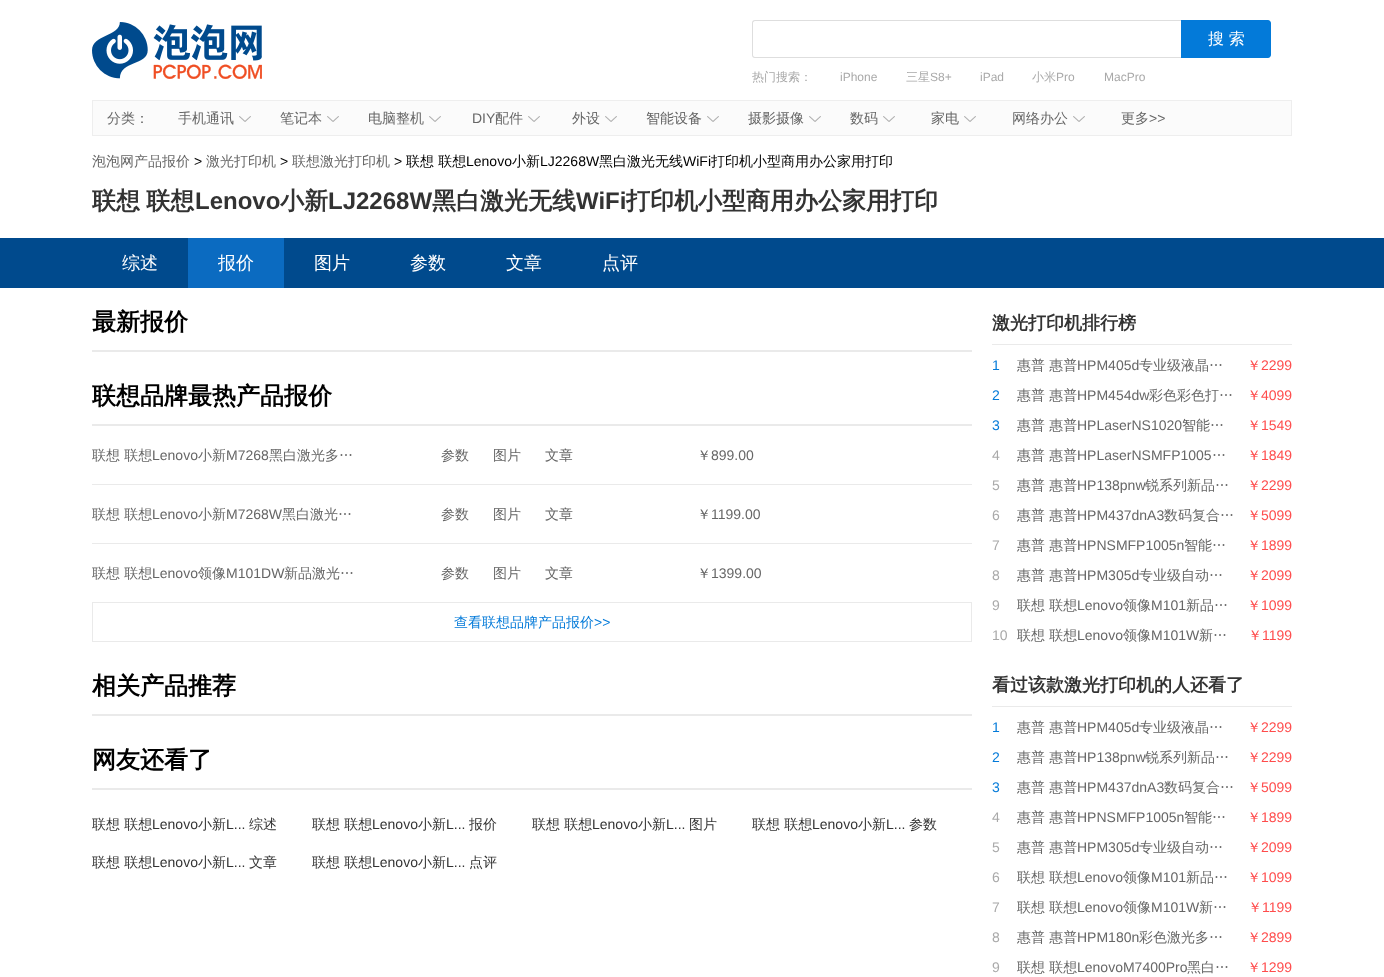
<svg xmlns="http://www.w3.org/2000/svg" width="1384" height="977">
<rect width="100%" height="100%" fill="#fff"/>
<image x="92" y="22" width="170" height="57" href="media/1.png"/>
<path d="M755 20h426v38h-426c-2 0-3-1-3-3v-32c0-2 1-3 3-3zm0 1h426v36h-426c-1 0-2-1-2-2v-32c0-1 1-2 2-2z" fill="#dedede" fill-rule="evenodd"/>
<path d="M1181 20h87c1.5 0 3 1.5 3 3v32c0 1.5-1.5 3-3 3h-87z" fill="#037ad9"/>
<text x="1208" y="44" style="font-family:WenQuanYi Zen Hei;font-size:16px;font-weight:500;fill:#fff">搜 索</text>
<text x="752" y="81" style="font-family:WenQuanYi Zen Hei;font-size:12px;font-weight:500;fill:#a9a9a9">热门搜索：</text>
<text x="840" y="81" style="font-family:Liberation Sans;font-size:12px;fill:#a9a9a9">iPhone</text>
<text x="906" y="81" style="font-family:WenQuanYi Zen Hei;font-size:12px;font-weight:500;fill:#a9a9a9">三星</text>
<text x="930" y="81" style="font-family:Liberation Sans;font-size:12px;fill:#a9a9a9">S8+</text>
<text x="980" y="81" style="font-family:Liberation Sans;font-size:12px;fill:#a9a9a9">iPad</text>
<text x="1032" y="81" style="font-family:WenQuanYi Zen Hei;font-size:12px;font-weight:500;fill:#a9a9a9">小米</text>
<text x="1056" y="81" style="font-family:Liberation Sans;font-size:12px;fill:#a9a9a9">Pro</text>
<text x="1104" y="81" style="font-family:Liberation Sans;font-size:12px;fill:#a9a9a9">MacPro</text>
<rect x="92.5" y="100.5" width="1199" height="35" fill="#fbfbfb" stroke="#eee"/>
<text x="107" y="123" style="font-family:WenQuanYi Zen Hei;font-size:14px;font-weight:500;fill:#666">分类：</text>
<text x="178" y="123" style="font-family:WenQuanYi Zen Hei;font-size:14px;font-weight:500;fill:#666">手机通讯</text>
<image x="239" y="116" width="12" height="6" href="media/2.png"/>
<text x="280" y="123" style="font-family:WenQuanYi Zen Hei;font-size:14px;font-weight:500;fill:#666">笔记本</text>
<image x="327" y="116" width="12" height="6" href="media/2.png"/>
<text x="368" y="123" style="font-family:WenQuanYi Zen Hei;font-size:14px;font-weight:500;fill:#666">电脑整机</text>
<image x="429" y="116" width="12" height="6" href="media/2.png"/>
<text x="472" y="123" style="font-family:Liberation Sans;font-size:14px;fill:#666">DIY</text>
<text x="495" y="123" style="font-family:WenQuanYi Zen Hei;font-size:14px;font-weight:500;fill:#666">配件</text>
<image x="528" y="116" width="12" height="6" href="media/2.png"/>
<text x="572" y="123" style="font-family:WenQuanYi Zen Hei;font-size:14px;font-weight:500;fill:#666">外设</text>
<image x="605" y="116" width="12" height="6" href="media/2.png"/>
<text x="646" y="123" style="font-family:WenQuanYi Zen Hei;font-size:14px;font-weight:500;fill:#666">智能设备</text>
<image x="707" y="116" width="12" height="6" href="media/2.png"/>
<text x="748" y="123" style="font-family:WenQuanYi Zen Hei;font-size:14px;font-weight:500;fill:#666">摄影摄像</text>
<image x="809" y="116" width="12" height="6" href="media/2.png"/>
<text x="850" y="123" style="font-family:WenQuanYi Zen Hei;font-size:14px;font-weight:500;fill:#666">数码</text>
<image x="883" y="116" width="12" height="6" href="media/2.png"/>
<text x="931" y="123" style="font-family:WenQuanYi Zen Hei;font-size:14px;font-weight:500;fill:#666">家电</text>
<image x="964" y="116" width="12" height="6" href="media/2.png"/>
<text x="1012" y="123" style="font-family:WenQuanYi Zen Hei;font-size:14px;font-weight:500;fill:#666">网络办公</text>
<image x="1073" y="116" width="12" height="6" href="media/2.png"/>
<text x="1121" y="123" style="font-family:WenQuanYi Zen Hei;font-size:14px;font-weight:500;fill:#666">更多</text>
<text x="1149" y="123" style="font-family:Liberation Sans;font-size:14px;fill:#666">&gt;&gt;</text>
<text x="92" y="166" style="font-family:WenQuanYi Zen Hei;font-size:14px;font-weight:500;fill:#666">泡泡网产品报价</text>
<text x="194" y="166" style="font-family:Liberation Sans;font-size:14px;fill:#000">&gt;</text>
<text x="206" y="166" style="font-family:WenQuanYi Zen Hei;font-size:14px;font-weight:500;fill:#666">激光打印机</text>
<text x="280" y="166" style="font-family:Liberation Sans;font-size:14px;fill:#000">&gt;</text>
<text x="292" y="166" style="font-family:WenQuanYi Zen Hei;font-size:14px;font-weight:500;fill:#666">联想激光打印机</text>
<text x="394" y="166" style="font-family:Liberation Sans;font-size:14px;fill:#000">&gt;</text>
<text x="406" y="166" style="font-family:WenQuanYi Zen Hei;font-size:14px;font-weight:500;fill:#000">联想 联想</text>
<text x="466" y="166" style="font-family:Liberation Sans;font-size:14px;fill:#000">Lenovo</text>
<text x="512" y="166" style="font-family:WenQuanYi Zen Hei;font-size:14px;font-weight:500;fill:#000">小新</text>
<text x="540" y="166" style="font-family:Liberation Sans;font-size:14px;fill:#000">LJ2268W</text>
<text x="599" y="166" style="font-family:WenQuanYi Zen Hei;font-size:14px;font-weight:500;fill:#000">黑白激光无线</text>
<text x="683" y="166" style="font-family:Liberation Sans;font-size:14px;fill:#000">WiFi</text>
<text x="711" y="166" style="font-family:WenQuanYi Zen Hei;font-size:14px;font-weight:500;fill:#000">打印机小型商用办公家用打印</text>
<text x="92" y="209" word-spacing="-1" style="font-family:WenQuanYi Zen Hei;font-size:24px;font-weight:bold;fill:#333">联想 联想</text>
<text x="195" y="209" style="font-family:Liberation Sans;font-size:24px;font-weight:bold;fill:#333">Lenovo</text>
<text x="280" y="209" style="font-family:WenQuanYi Zen Hei;font-size:24px;font-weight:bold;fill:#333">小新</text>
<text x="328" y="209" style="font-family:Liberation Sans;font-size:24px;font-weight:bold;fill:#333">LJ2268W</text>
<text x="432" y="209" style="font-family:WenQuanYi Zen Hei;font-size:24px;font-weight:bold;fill:#333">黑白激光无线</text>
<text x="576" y="209" style="font-family:Liberation Sans;font-size:24px;font-weight:bold;fill:#333">WiFi</text>
<text x="626" y="209" style="font-family:WenQuanYi Zen Hei;font-size:24px;font-weight:bold;fill:#333">打印机小型商用办公家用打印</text>
<rect y="238" width="1384" height="50" fill="#004a8d"/>
<text x="122" y="269" style="font-family:WenQuanYi Zen Hei;font-size:18px;font-weight:500;fill:#fff">综述</text>
<rect x="188" y="238" width="96" height="50" fill="#0b6bc1"/>
<text x="218" y="269" style="font-family:WenQuanYi Zen Hei;font-size:18px;font-weight:500;fill:#fff">报价</text>
<text x="314" y="269" style="font-family:WenQuanYi Zen Hei;font-size:18px;font-weight:500;fill:#fff">图片</text>
<text x="410" y="269" style="font-family:WenQuanYi Zen Hei;font-size:18px;font-weight:500;fill:#fff">参数</text>
<text x="506" y="269" style="font-family:WenQuanYi Zen Hei;font-size:18px;font-weight:500;fill:#fff">文章</text>
<text x="602" y="269" style="font-family:WenQuanYi Zen Hei;font-size:18px;font-weight:500;fill:#fff">点评</text>
<rect x="92" y="350" width="880" height="2" fill="#eaeaea"/>
<text x="92" y="330" style="font-family:WenQuanYi Zen Hei;font-size:24px;font-weight:bold;fill:#000">最新报价</text>
<rect x="92" y="424" width="880" height="2" fill="#eaeaea"/>
<text x="92" y="404" style="font-family:WenQuanYi Zen Hei;font-size:24px;font-weight:bold;fill:#000">联想品牌最热产品报价</text>
<text x="92" y="460" style="font-family:WenQuanYi Zen Hei;font-size:14px;font-weight:500;fill:#666">联想 联想</text>
<text x="152" y="460" style="font-family:Liberation Sans;font-size:14px;fill:#666">Lenovo</text>
<text x="198" y="460" style="font-family:WenQuanYi Zen Hei;font-size:14px;font-weight:500;fill:#666">小新</text>
<text x="226" y="460" style="font-family:Liberation Sans;font-size:14px;fill:#666">M7268</text>
<text x="269" y="460" style="font-family:WenQuanYi Zen Hei;font-size:14px;font-weight:500;fill:#666">黑白激光多…</text>
<text x="441" y="460" style="font-family:WenQuanYi Zen Hei;font-size:14px;font-weight:500;fill:#666">参数</text>
<text x="493" y="460" style="font-family:WenQuanYi Zen Hei;font-size:14px;font-weight:500;fill:#666">图片</text>
<text x="545" y="460" style="font-family:WenQuanYi Zen Hei;font-size:14px;font-weight:500;fill:#666">文章</text>
<text x="697" y="460" style="font-family:WenQuanYi Zen Hei;font-size:14px;font-weight:500;fill:#666">￥</text>
<text x="711" y="460" style="font-family:Liberation Sans;font-size:14px;fill:#666">899.00</text>
<rect x="92" y="484" width="880" height="1" fill="#eaeaea"/>
<text x="92" y="519" style="font-family:WenQuanYi Zen Hei;font-size:14px;font-weight:500;fill:#666">联想 联想</text>
<text x="152" y="519" style="font-family:Liberation Sans;font-size:14px;fill:#666">Lenovo</text>
<text x="198" y="519" style="font-family:WenQuanYi Zen Hei;font-size:14px;font-weight:500;fill:#666">小新</text>
<text x="226" y="519" style="font-family:Liberation Sans;font-size:14px;fill:#666">M7268W</text>
<text x="282" y="519" style="font-family:WenQuanYi Zen Hei;font-size:14px;font-weight:500;fill:#666">黑白激光…</text>
<text x="441" y="519" style="font-family:WenQuanYi Zen Hei;font-size:14px;font-weight:500;fill:#666">参数</text>
<text x="493" y="519" style="font-family:WenQuanYi Zen Hei;font-size:14px;font-weight:500;fill:#666">图片</text>
<text x="545" y="519" style="font-family:WenQuanYi Zen Hei;font-size:14px;font-weight:500;fill:#666">文章</text>
<text x="697" y="519" style="font-family:WenQuanYi Zen Hei;font-size:14px;font-weight:500;fill:#666">￥</text>
<text x="711" y="519" style="font-family:Liberation Sans;font-size:14px;fill:#666">1199.00</text>
<rect x="92" y="543" width="880" height="1" fill="#eaeaea"/>
<text x="92" y="578" style="font-family:WenQuanYi Zen Hei;font-size:14px;font-weight:500;fill:#666">联想 联想</text>
<text x="152" y="578" style="font-family:Liberation Sans;font-size:14px;fill:#666">Lenovo</text>
<text x="198" y="578" style="font-family:WenQuanYi Zen Hei;font-size:14px;font-weight:500;fill:#666">领像</text>
<text x="226" y="578" style="font-family:Liberation Sans;font-size:14px;fill:#666">M101DW</text>
<text x="284" y="578" style="font-family:WenQuanYi Zen Hei;font-size:14px;font-weight:500;fill:#666">新品激光…</text>
<text x="441" y="578" style="font-family:WenQuanYi Zen Hei;font-size:14px;font-weight:500;fill:#666">参数</text>
<text x="493" y="578" style="font-family:WenQuanYi Zen Hei;font-size:14px;font-weight:500;fill:#666">图片</text>
<text x="545" y="578" style="font-family:WenQuanYi Zen Hei;font-size:14px;font-weight:500;fill:#666">文章</text>
<text x="697" y="578" style="font-family:WenQuanYi Zen Hei;font-size:14px;font-weight:500;fill:#666">￥</text>
<text x="711" y="578" style="font-family:Liberation Sans;font-size:14px;fill:#666">1399.00</text>
<rect x="92.5" y="602.5" width="879" height="39" fill="none" stroke="#eaeaea"/>
<text x="454" y="627" style="font-family:WenQuanYi Zen Hei;font-size:14px;font-weight:500;fill:#037ad9">查看联想品牌产品报价</text>
<text x="594" y="627" style="font-family:Liberation Sans;font-size:14px;fill:#037ad9">&gt;&gt;</text>
<rect x="92" y="714" width="880" height="2" fill="#eaeaea"/>
<text x="92" y="694" style="font-family:WenQuanYi Zen Hei;font-size:24px;font-weight:bold;fill:#000">相关产品推荐</text>
<rect x="92" y="788" width="880" height="2" fill="#eaeaea"/>
<text x="92" y="768" style="font-family:WenQuanYi Zen Hei;font-size:24px;font-weight:bold;fill:#000">网友还看了</text>
<text x="92" y="829" style="font-family:WenQuanYi Zen Hei;font-size:14px;font-weight:500;fill:#333">联想 联想</text>
<text x="152" y="829" style="font-family:Liberation Sans;font-size:14px;fill:#333">Lenovo</text>
<text x="198" y="829" style="font-family:WenQuanYi Zen Hei;font-size:14px;font-weight:500;fill:#333">小新</text>
<text x="226" y="829" style="font-family:Liberation Sans;font-size:14px;fill:#333">L...</text>
<text x="249" y="829" style="font-family:WenQuanYi Zen Hei;font-size:14px;font-weight:500;fill:#333">综述</text>
<text x="312" y="829" style="font-family:WenQuanYi Zen Hei;font-size:14px;font-weight:500;fill:#333">联想 联想</text>
<text x="372" y="829" style="font-family:Liberation Sans;font-size:14px;fill:#333">Lenovo</text>
<text x="418" y="829" style="font-family:WenQuanYi Zen Hei;font-size:14px;font-weight:500;fill:#333">小新</text>
<text x="446" y="829" style="font-family:Liberation Sans;font-size:14px;fill:#333">L...</text>
<text x="469" y="829" style="font-family:WenQuanYi Zen Hei;font-size:14px;font-weight:500;fill:#333">报价</text>
<text x="532" y="829" style="font-family:WenQuanYi Zen Hei;font-size:14px;font-weight:500;fill:#333">联想 联想</text>
<text x="592" y="829" style="font-family:Liberation Sans;font-size:14px;fill:#333">Lenovo</text>
<text x="638" y="829" style="font-family:WenQuanYi Zen Hei;font-size:14px;font-weight:500;fill:#333">小新</text>
<text x="666" y="829" style="font-family:Liberation Sans;font-size:14px;fill:#333">L...</text>
<text x="689" y="829" style="font-family:WenQuanYi Zen Hei;font-size:14px;font-weight:500;fill:#333">图片</text>
<text x="752" y="829" style="font-family:WenQuanYi Zen Hei;font-size:14px;font-weight:500;fill:#333">联想 联想</text>
<text x="812" y="829" style="font-family:Liberation Sans;font-size:14px;fill:#333">Lenovo</text>
<text x="858" y="829" style="font-family:WenQuanYi Zen Hei;font-size:14px;font-weight:500;fill:#333">小新</text>
<text x="886" y="829" style="font-family:Liberation Sans;font-size:14px;fill:#333">L...</text>
<text x="909" y="829" style="font-family:WenQuanYi Zen Hei;font-size:14px;font-weight:500;fill:#333">参数</text>
<text x="92" y="867" style="font-family:WenQuanYi Zen Hei;font-size:14px;font-weight:500;fill:#333">联想 联想</text>
<text x="152" y="867" style="font-family:Liberation Sans;font-size:14px;fill:#333">Lenovo</text>
<text x="198" y="867" style="font-family:WenQuanYi Zen Hei;font-size:14px;font-weight:500;fill:#333">小新</text>
<text x="226" y="867" style="font-family:Liberation Sans;font-size:14px;fill:#333">L...</text>
<text x="249" y="867" style="font-family:WenQuanYi Zen Hei;font-size:14px;font-weight:500;fill:#333">文章</text>
<text x="312" y="867" style="font-family:WenQuanYi Zen Hei;font-size:14px;font-weight:500;fill:#333">联想 联想</text>
<text x="372" y="867" style="font-family:Liberation Sans;font-size:14px;fill:#333">Lenovo</text>
<text x="418" y="867" style="font-family:WenQuanYi Zen Hei;font-size:14px;font-weight:500;fill:#333">小新</text>
<text x="446" y="867" style="font-family:Liberation Sans;font-size:14px;fill:#333">L...</text>
<text x="469" y="867" style="font-family:WenQuanYi Zen Hei;font-size:14px;font-weight:500;fill:#333">点评</text>
<rect x="992" y="344" width="300" height="1" fill="#eaeaea"/>
<text x="992" y="329" style="font-family:WenQuanYi Zen Hei;font-size:18px;font-weight:bold;fill:#333">激光打印机排行榜</text>
<text x="992" y="370" style="font-family:Liberation Sans;font-size:14px;fill:#037ad9">1</text>
<text x="1017" y="370" style="font-family:WenQuanYi Zen Hei;font-size:14px;font-weight:500;fill:#666">惠普 惠普</text>
<text x="1077" y="370" style="font-family:Liberation Sans;font-size:14px;fill:#666">HPM405d</text>
<text x="1139" y="370" style="font-family:WenQuanYi Zen Hei;font-size:14px;font-weight:500;fill:#666">专业级液晶…</text>
<text x="1247" y="370" style="font-family:WenQuanYi Zen Hei;font-size:14px;font-weight:500;fill:#ff4c4c">￥</text>
<text x="1261" y="370" style="font-family:Liberation Sans;font-size:14px;fill:#ff4c4c">2299</text>
<text x="992" y="400" style="font-family:Liberation Sans;font-size:14px;fill:#037ad9">2</text>
<text x="1017" y="400" style="font-family:WenQuanYi Zen Hei;font-size:14px;font-weight:500;fill:#666">惠普 惠普</text>
<text x="1077" y="400" style="font-family:Liberation Sans;font-size:14px;fill:#666">HPM454dw</text>
<text x="1149" y="400" style="font-family:WenQuanYi Zen Hei;font-size:14px;font-weight:500;fill:#666">彩色彩色打…</text>
<text x="1247" y="400" style="font-family:WenQuanYi Zen Hei;font-size:14px;font-weight:500;fill:#ff4c4c">￥</text>
<text x="1261" y="400" style="font-family:Liberation Sans;font-size:14px;fill:#ff4c4c">4099</text>
<text x="992" y="430" style="font-family:Liberation Sans;font-size:14px;fill:#037ad9">3</text>
<text x="1017" y="430" style="font-family:WenQuanYi Zen Hei;font-size:14px;font-weight:500;fill:#666">惠普 惠普</text>
<text x="1077" y="430" style="font-family:Liberation Sans;font-size:14px;fill:#666">HPLaserNS1020</text>
<text x="1182" y="430" style="font-family:WenQuanYi Zen Hei;font-size:14px;font-weight:500;fill:#666">智能…</text>
<text x="1247" y="430" style="font-family:WenQuanYi Zen Hei;font-size:14px;font-weight:500;fill:#ff4c4c">￥</text>
<text x="1261" y="430" style="font-family:Liberation Sans;font-size:14px;fill:#ff4c4c">1549</text>
<text x="992" y="460" style="font-family:Liberation Sans;font-size:14px;fill:#a9a9a9">4</text>
<text x="1017" y="460" style="font-family:WenQuanYi Zen Hei;font-size:14px;font-weight:500;fill:#666">惠普 惠普</text>
<text x="1077" y="460" style="font-family:Liberation Sans;font-size:14px;fill:#666">HPLaserNSMFP1005</text>
<text x="1212" y="460" style="font-family:WenQuanYi Zen Hei;font-size:14px;font-weight:500;fill:#666">…</text>
<text x="1247" y="460" style="font-family:WenQuanYi Zen Hei;font-size:14px;font-weight:500;fill:#ff4c4c">￥</text>
<text x="1261" y="460" style="font-family:Liberation Sans;font-size:14px;fill:#ff4c4c">1849</text>
<text x="992" y="490" style="font-family:Liberation Sans;font-size:14px;fill:#a9a9a9">5</text>
<text x="1017" y="490" style="font-family:WenQuanYi Zen Hei;font-size:14px;font-weight:500;fill:#666">惠普 惠普</text>
<text x="1077" y="490" style="font-family:Liberation Sans;font-size:14px;fill:#666">HP138pnw</text>
<text x="1145" y="490" style="font-family:WenQuanYi Zen Hei;font-size:14px;font-weight:500;fill:#666">锐系列新品…</text>
<text x="1247" y="490" style="font-family:WenQuanYi Zen Hei;font-size:14px;font-weight:500;fill:#ff4c4c">￥</text>
<text x="1261" y="490" style="font-family:Liberation Sans;font-size:14px;fill:#ff4c4c">2299</text>
<text x="992" y="520" style="font-family:Liberation Sans;font-size:14px;fill:#a9a9a9">6</text>
<text x="1017" y="520" style="font-family:WenQuanYi Zen Hei;font-size:14px;font-weight:500;fill:#666">惠普 惠普</text>
<text x="1077" y="520" style="font-family:Liberation Sans;font-size:14px;fill:#666">HPM437dnA3</text>
<text x="1164" y="520" style="font-family:WenQuanYi Zen Hei;font-size:14px;font-weight:500;fill:#666">数码复合…</text>
<text x="1247" y="520" style="font-family:WenQuanYi Zen Hei;font-size:14px;font-weight:500;fill:#ff4c4c">￥</text>
<text x="1261" y="520" style="font-family:Liberation Sans;font-size:14px;fill:#ff4c4c">5099</text>
<text x="992" y="550" style="font-family:Liberation Sans;font-size:14px;fill:#a9a9a9">7</text>
<text x="1017" y="550" style="font-family:WenQuanYi Zen Hei;font-size:14px;font-weight:500;fill:#666">惠普 惠普</text>
<text x="1077" y="550" style="font-family:Liberation Sans;font-size:14px;fill:#666">HPNSMFP1005n</text>
<text x="1184" y="550" style="font-family:WenQuanYi Zen Hei;font-size:14px;font-weight:500;fill:#666">智能…</text>
<text x="1247" y="550" style="font-family:WenQuanYi Zen Hei;font-size:14px;font-weight:500;fill:#ff4c4c">￥</text>
<text x="1261" y="550" style="font-family:Liberation Sans;font-size:14px;fill:#ff4c4c">1899</text>
<text x="992" y="580" style="font-family:Liberation Sans;font-size:14px;fill:#a9a9a9">8</text>
<text x="1017" y="580" style="font-family:WenQuanYi Zen Hei;font-size:14px;font-weight:500;fill:#666">惠普 惠普</text>
<text x="1077" y="580" style="font-family:Liberation Sans;font-size:14px;fill:#666">HPM305d</text>
<text x="1139" y="580" style="font-family:WenQuanYi Zen Hei;font-size:14px;font-weight:500;fill:#666">专业级自动…</text>
<text x="1247" y="580" style="font-family:WenQuanYi Zen Hei;font-size:14px;font-weight:500;fill:#ff4c4c">￥</text>
<text x="1261" y="580" style="font-family:Liberation Sans;font-size:14px;fill:#ff4c4c">2099</text>
<text x="992" y="610" style="font-family:Liberation Sans;font-size:14px;fill:#a9a9a9">9</text>
<text x="1017" y="610" style="font-family:WenQuanYi Zen Hei;font-size:14px;font-weight:500;fill:#666">联想 联想</text>
<text x="1077" y="610" style="font-family:Liberation Sans;font-size:14px;fill:#666">Lenovo</text>
<text x="1123" y="610" style="font-family:WenQuanYi Zen Hei;font-size:14px;font-weight:500;fill:#666">领像</text>
<text x="1151" y="610" style="font-family:Liberation Sans;font-size:14px;fill:#666">M101</text>
<text x="1186" y="610" style="font-family:WenQuanYi Zen Hei;font-size:14px;font-weight:500;fill:#666">新品…</text>
<text x="1247" y="610" style="font-family:WenQuanYi Zen Hei;font-size:14px;font-weight:500;fill:#ff4c4c">￥</text>
<text x="1261" y="610" style="font-family:Liberation Sans;font-size:14px;fill:#ff4c4c">1099</text>
<text x="992" y="640" style="font-family:Liberation Sans;font-size:14px;fill:#a9a9a9">10</text>
<text x="1017" y="640" style="font-family:WenQuanYi Zen Hei;font-size:14px;font-weight:500;fill:#666">联想 联想</text>
<text x="1077" y="640" style="font-family:Liberation Sans;font-size:14px;fill:#666">Lenovo</text>
<text x="1123" y="640" style="font-family:WenQuanYi Zen Hei;font-size:14px;font-weight:500;fill:#666">领像</text>
<text x="1151" y="640" style="font-family:Liberation Sans;font-size:14px;fill:#666">M101W</text>
<text x="1199" y="640" style="font-family:WenQuanYi Zen Hei;font-size:14px;font-weight:500;fill:#666">新…</text>
<text x="1248" y="640" style="font-family:WenQuanYi Zen Hei;font-size:14px;font-weight:500;fill:#ff4c4c">￥</text>
<text x="1262" y="640" style="font-family:Liberation Sans;font-size:14px;fill:#ff4c4c">1199</text>
<rect x="992" y="706" width="300" height="1" fill="#eaeaea"/>
<text x="992" y="691" style="font-family:WenQuanYi Zen Hei;font-size:18px;font-weight:bold;fill:#333">看过该款激光打印机的人还看了</text>
<text x="992" y="732" style="font-family:Liberation Sans;font-size:14px;fill:#037ad9">1</text>
<text x="1017" y="732" style="font-family:WenQuanYi Zen Hei;font-size:14px;font-weight:500;fill:#666">惠普 惠普</text>
<text x="1077" y="732" style="font-family:Liberation Sans;font-size:14px;fill:#666">HPM405d</text>
<text x="1139" y="732" style="font-family:WenQuanYi Zen Hei;font-size:14px;font-weight:500;fill:#666">专业级液晶…</text>
<text x="1247" y="732" style="font-family:WenQuanYi Zen Hei;font-size:14px;font-weight:500;fill:#ff4c4c">￥</text>
<text x="1261" y="732" style="font-family:Liberation Sans;font-size:14px;fill:#ff4c4c">2299</text>
<text x="992" y="762" style="font-family:Liberation Sans;font-size:14px;fill:#037ad9">2</text>
<text x="1017" y="762" style="font-family:WenQuanYi Zen Hei;font-size:14px;font-weight:500;fill:#666">惠普 惠普</text>
<text x="1077" y="762" style="font-family:Liberation Sans;font-size:14px;fill:#666">HP138pnw</text>
<text x="1145" y="762" style="font-family:WenQuanYi Zen Hei;font-size:14px;font-weight:500;fill:#666">锐系列新品…</text>
<text x="1247" y="762" style="font-family:WenQuanYi Zen Hei;font-size:14px;font-weight:500;fill:#ff4c4c">￥</text>
<text x="1261" y="762" style="font-family:Liberation Sans;font-size:14px;fill:#ff4c4c">2299</text>
<text x="992" y="792" style="font-family:Liberation Sans;font-size:14px;fill:#037ad9">3</text>
<text x="1017" y="792" style="font-family:WenQuanYi Zen Hei;font-size:14px;font-weight:500;fill:#666">惠普 惠普</text>
<text x="1077" y="792" style="font-family:Liberation Sans;font-size:14px;fill:#666">HPM437dnA3</text>
<text x="1164" y="792" style="font-family:WenQuanYi Zen Hei;font-size:14px;font-weight:500;fill:#666">数码复合…</text>
<text x="1247" y="792" style="font-family:WenQuanYi Zen Hei;font-size:14px;font-weight:500;fill:#ff4c4c">￥</text>
<text x="1261" y="792" style="font-family:Liberation Sans;font-size:14px;fill:#ff4c4c">5099</text>
<text x="992" y="822" style="font-family:Liberation Sans;font-size:14px;fill:#a9a9a9">4</text>
<text x="1017" y="822" style="font-family:WenQuanYi Zen Hei;font-size:14px;font-weight:500;fill:#666">惠普 惠普</text>
<text x="1077" y="822" style="font-family:Liberation Sans;font-size:14px;fill:#666">HPNSMFP1005n</text>
<text x="1184" y="822" style="font-family:WenQuanYi Zen Hei;font-size:14px;font-weight:500;fill:#666">智能…</text>
<text x="1247" y="822" style="font-family:WenQuanYi Zen Hei;font-size:14px;font-weight:500;fill:#ff4c4c">￥</text>
<text x="1261" y="822" style="font-family:Liberation Sans;font-size:14px;fill:#ff4c4c">1899</text>
<text x="992" y="852" style="font-family:Liberation Sans;font-size:14px;fill:#a9a9a9">5</text>
<text x="1017" y="852" style="font-family:WenQuanYi Zen Hei;font-size:14px;font-weight:500;fill:#666">惠普 惠普</text>
<text x="1077" y="852" style="font-family:Liberation Sans;font-size:14px;fill:#666">HPM305d</text>
<text x="1139" y="852" style="font-family:WenQuanYi Zen Hei;font-size:14px;font-weight:500;fill:#666">专业级自动…</text>
<text x="1247" y="852" style="font-family:WenQuanYi Zen Hei;font-size:14px;font-weight:500;fill:#ff4c4c">￥</text>
<text x="1261" y="852" style="font-family:Liberation Sans;font-size:14px;fill:#ff4c4c">2099</text>
<text x="992" y="882" style="font-family:Liberation Sans;font-size:14px;fill:#a9a9a9">6</text>
<text x="1017" y="882" style="font-family:WenQuanYi Zen Hei;font-size:14px;font-weight:500;fill:#666">联想 联想</text>
<text x="1077" y="882" style="font-family:Liberation Sans;font-size:14px;fill:#666">Lenovo</text>
<text x="1123" y="882" style="font-family:WenQuanYi Zen Hei;font-size:14px;font-weight:500;fill:#666">领像</text>
<text x="1151" y="882" style="font-family:Liberation Sans;font-size:14px;fill:#666">M101</text>
<text x="1186" y="882" style="font-family:WenQuanYi Zen Hei;font-size:14px;font-weight:500;fill:#666">新品…</text>
<text x="1247" y="882" style="font-family:WenQuanYi Zen Hei;font-size:14px;font-weight:500;fill:#ff4c4c">￥</text>
<text x="1261" y="882" style="font-family:Liberation Sans;font-size:14px;fill:#ff4c4c">1099</text>
<text x="992" y="912" style="font-family:Liberation Sans;font-size:14px;fill:#a9a9a9">7</text>
<text x="1017" y="912" style="font-family:WenQuanYi Zen Hei;font-size:14px;font-weight:500;fill:#666">联想 联想</text>
<text x="1077" y="912" style="font-family:Liberation Sans;font-size:14px;fill:#666">Lenovo</text>
<text x="1123" y="912" style="font-family:WenQuanYi Zen Hei;font-size:14px;font-weight:500;fill:#666">领像</text>
<text x="1151" y="912" style="font-family:Liberation Sans;font-size:14px;fill:#666">M101W</text>
<text x="1199" y="912" style="font-family:WenQuanYi Zen Hei;font-size:14px;font-weight:500;fill:#666">新…</text>
<text x="1248" y="912" style="font-family:WenQuanYi Zen Hei;font-size:14px;font-weight:500;fill:#ff4c4c">￥</text>
<text x="1262" y="912" style="font-family:Liberation Sans;font-size:14px;fill:#ff4c4c">1199</text>
<text x="992" y="942" style="font-family:Liberation Sans;font-size:14px;fill:#a9a9a9">8</text>
<text x="1017" y="942" style="font-family:WenQuanYi Zen Hei;font-size:14px;font-weight:500;fill:#666">惠普 惠普</text>
<text x="1077" y="942" style="font-family:Liberation Sans;font-size:14px;fill:#666">HPM180n</text>
<text x="1139" y="942" style="font-family:WenQuanYi Zen Hei;font-size:14px;font-weight:500;fill:#666">彩色激光多…</text>
<text x="1247" y="942" style="font-family:WenQuanYi Zen Hei;font-size:14px;font-weight:500;fill:#ff4c4c">￥</text>
<text x="1261" y="942" style="font-family:Liberation Sans;font-size:14px;fill:#ff4c4c">2899</text>
<text x="992" y="972" style="font-family:Liberation Sans;font-size:14px;fill:#a9a9a9">9</text>
<text x="1017" y="972" style="font-family:WenQuanYi Zen Hei;font-size:14px;font-weight:500;fill:#666">联想 联想</text>
<text x="1077" y="972" style="font-family:Liberation Sans;font-size:14px;fill:#666">LenovoM7400Pro</text>
<text x="1187" y="972" style="font-family:WenQuanYi Zen Hei;font-size:14px;font-weight:500;fill:#666">黑白…</text>
<text x="1247" y="972" style="font-family:WenQuanYi Zen Hei;font-size:14px;font-weight:500;fill:#ff4c4c">￥</text>
<text x="1261" y="972" style="font-family:Liberation Sans;font-size:14px;fill:#ff4c4c">1299</text>
</svg>
